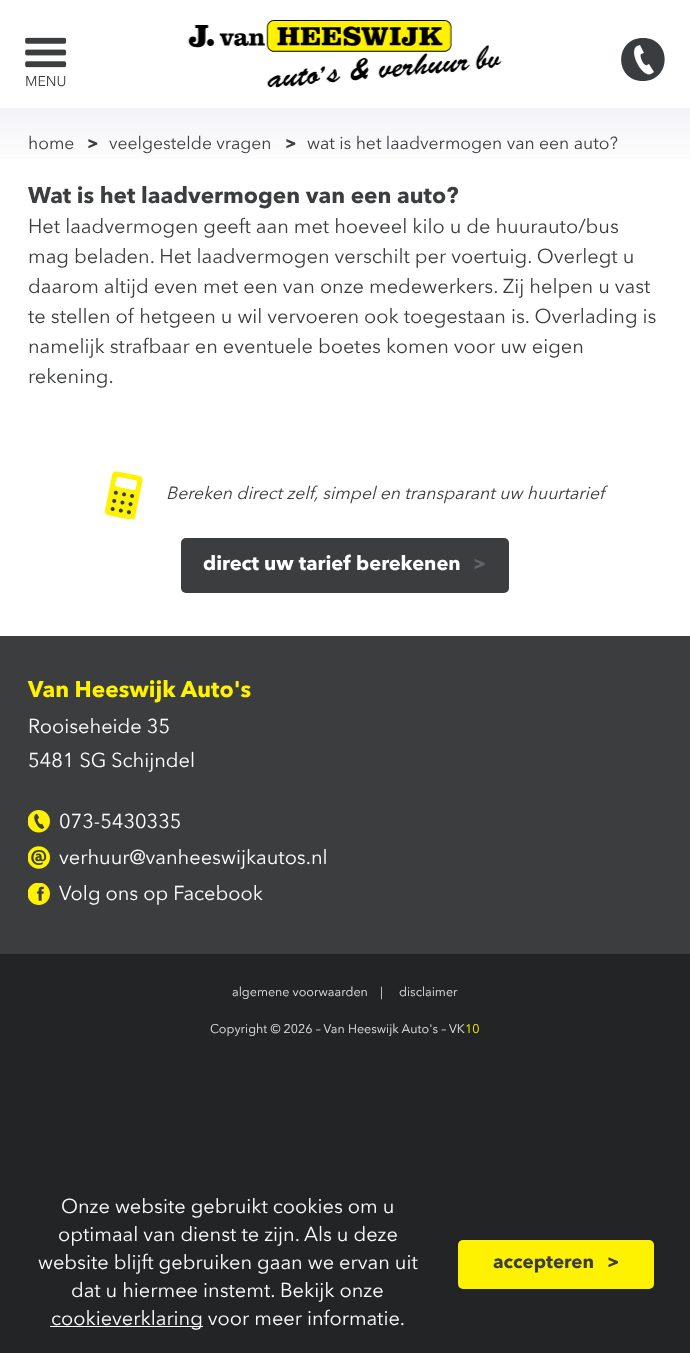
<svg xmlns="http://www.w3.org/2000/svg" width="690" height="1353">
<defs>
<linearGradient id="g1" gradientUnits="userSpaceOnUse" x1="345" y1="107" x2="345" y2="434"><stop offset="0" stop-color="#f3f3f7"/><stop offset="0.2" stop-color="#fff"/><stop offset="1" stop-color="#fff"/></linearGradient>
</defs>
<rect width="100%" height="100%" fill="#222425"/>
<rect width="690" height="636" fill="#fff"/>
<image x="25" y="37" width="42" height="31" href="media/1.png"/>
<text x="25" y="86" style="font-family:Avenir Next;font-size:14px;fill:#3b3d3f">MENU</text>
<image x="188" y="20" width="314" height="68" href="media/2.png"/>
<path d="M643 38c-29 0-29 43 0 43c29 0 29-43 0-43zm8 36c-9 4-23-23-14-28l3-1l4 8l-3 1c-2 2 3 13 6 11l2-1l5 8z" fill="#3a3d3f"/>
<rect y="108" width="690" height="51" fill="url(#g1)"/>
<text x="28" y="149" style="font-family:Avenir Next;font-size:17.5px;fill:#3b3d3f">home</text>
<text x="87" y="149" style="font-family:Avenir Next;font-size:17.5px;font-weight:bold;fill:#3b3d3f">&gt;</text>
<text x="109" y="149" style="font-family:Avenir Next;font-size:17.5px;fill:#3b3d3f">veelgestelde vragen</text>
<text x="285" y="149" style="font-family:Avenir Next;font-size:17.5px;font-weight:bold;fill:#3b3d3f">&gt;</text>
<text x="307" y="149" style="font-family:Avenir Next;font-size:17.5px;fill:#3b3d3f">wat is het laadvermogen van een auto?</text>
<text x="28" y="203" style="font-family:Avenir Next;font-size:22.5px;font-weight:bold;fill:#3b3d3f">Wat is het laadvermogen van een auto?</text>
<text x="28" y="233" style="font-family:Avenir Next;font-size:20px;fill:#3b3d3f">Het laadvermogen geeft aan met hoeveel kilo u de huurauto/bus</text>
<text x="28" y="263" style="font-family:Avenir Next;font-size:20px;fill:#3b3d3f">mag beladen. Het laadvermogen verschilt per voertuig. Overlegt u</text>
<text x="28" y="293" style="font-family:Avenir Next;font-size:20px;fill:#3b3d3f">daarom altijd even met een van onze medewerkers. Zij helpen u vast</text>
<text x="28" y="323" style="font-family:Avenir Next;font-size:20px;fill:#3b3d3f">te stellen of hetgeen u wil vervoeren ook toegestaan is. Overlading is</text>
<text x="28" y="353" style="font-family:Avenir Next;font-size:20px;fill:#3b3d3f">namelijk strafbaar en eventuele boetes komen voor uw eigen</text>
<text x="28" y="383" style="font-family:Avenir Next;font-size:20px;fill:#3b3d3f">rekening.</text>
<image x="105" y="471" width="38" height="48" href="media/3.png"/>
<text x="166" y="499" style="font-family:Avenir Next;font-size:17.5px;font-style:italic;fill:#3b3d3f">Bereken direct zelf, simpel en transparant uw huurtarief</text>
<rect x="181" y="538" width="328" height="55" rx="5" fill="#3b3d3f"/>
<text x="203" y="570" style="font-family:Avenir Next;font-size:20px;font-weight:bold;fill:#fff">direct uw tarief berekenen</text>
<text x="473" y="570" style="font-family:Avenir Next;font-size:20px;font-weight:bold;fill:#606367">&gt;</text>
<rect y="636" width="690" height="318" fill="#3b3d3f"/>
<text x="28" y="697" style="font-family:Avenir Next;font-size:22.5px;font-weight:bold;fill:#fff200">Van Heeswijk Auto's</text>
<text x="28" y="733" style="font-family:Avenir Next;font-size:20px;fill:#fff">Rooiseheide 35</text>
<text x="28" y="767" style="font-family:Avenir Next;font-size:20px;fill:#fff">5481 SG Schijndel</text>
<image x="28" y="810" width="22" height="23" href="media/4.png"/>
<text x="59" y="828" style="font-family:Avenir Next;font-size:20px;fill:#fff">073-5430335</text>
<image x="28" y="846" width="22" height="23" href="media/5.png"/>
<text x="59" y="864" style="font-family:Avenir Next;font-size:20px;fill:#fff">verhuur@vanheeswijkautos.nl</text>
<image x="28" y="883" width="22" height="22" href="media/6.png"/>
<text x="59" y="900" style="font-family:Avenir Next;font-size:20px;fill:#fff">Volg ons op Facebook</text>
<text x="232" y="996" style="font-family:Avenir Next;font-size:12.5px;fill:#e6e6e6">algemene voorwaarden</text>
<text x="380" y="996" style="font-family:Avenir Next;font-size:12.5px;fill:#e6e6e6">|</text>
<text x="399" y="996" style="font-family:Avenir Next;font-size:12.5px;fill:#e6e6e6">disclaimer</text>
<text x="210" y="1033" style="font-family:Avenir Next;font-size:12.5px;fill:#e6e6e6">Copyright © 2026 – Van Heeswijk Auto's – VK</text>
<text x="465" y="1033" style="font-family:Avenir Next;font-size:12.5px;fill:#fff200">10</text>
<text x="61" y="1213" style="font-family:Avenir Next;font-size:20px;fill:#fff">Onze website gebruikt cookies om u</text>
<text x="58" y="1241" style="font-family:Avenir Next;font-size:20px;fill:#fff">optimaal van dienst te zijn. Als u deze</text>
<text x="38" y="1269" style="font-family:Avenir Next;font-size:20px;fill:#fff">website blijft gebruiken gaan we ervan uit</text>
<text x="71" y="1297" style="font-family:Avenir Next;font-size:20px;fill:#fff">dat u hiermee instemt. Bekijk onze</text>
<rect x="50" y="1326" width="153" height="1" fill="#fff"/>
<text x="51" y="1325" style="font-family:Avenir Next;font-size:20px;fill:#fff">cookieverklaring voor meer informatie.</text>
<rect x="458" y="1240" width="196" height="49" rx="5" fill="#fff200"/>
<text x="493" y="1268" style="font-family:Avenir Next;font-size:18.75px;font-weight:bold;fill:#3b3d3f">accepteren</text>
<text x="607" y="1268" style="font-family:Avenir Next;font-size:18.75px;font-weight:bold;fill:#3b3d3f">&gt;</text>
</svg>
